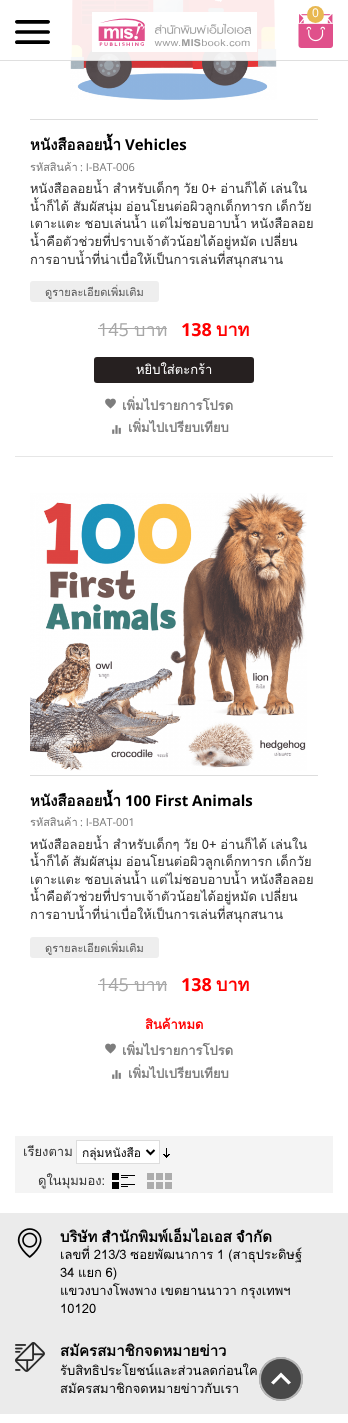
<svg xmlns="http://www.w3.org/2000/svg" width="348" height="1423">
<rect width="100%" height="100%" fill="#fff"/>
<image x="70" y="0" width="207" height="100" href="media/4.png"/>
<rect x="70" width="207" height="61" fill="#ffffffe6"/>
<rect y="60" width="348" height="1" fill="#9696964d"/>
<image x="15" y="20" width="35" height="24" href="media/1.png"/>
<image x="92" y="12" width="165" height="40" href="media/2.png"/>
<image x="298" y="14" width="35" height="34" href="media/3.png"/>
<circle cx="315.5" cy="14.5" r="8.5" fill="#e8b851"/>
<text x="312" y="17" style="font-family:Open Sans;font-size:12px;fill:#fff">0</text>
<rect x="15" y="456" width="318" height="1" fill="#e6e6e6"/>
<rect x="30" y="119" width="288" height="1" fill="#ddd"/>
<text x="30" y="150" style="font-family:Loma;font-size:15px;font-weight:bold;fill:#000">หนังสือลอยน้ำ</text>
<text x="125" y="150" style="font-family:Open Sans;font-size:15px;font-weight:bold;fill:#000">Vehicles</text>
<text x="30" y="171" style="font-family:Loma;font-size:11px;fill:#777">รหัสสินค้า</text>
<text x="80" y="171" style="font-family:Open Sans;font-size:11px;fill:#777">: I-BAT-006</text>
<text x="30" y="193" word-spacing="-0.75" style="font-family:Loma;font-size:13px;fill:#333">หนังสือลอยน้ำ สำหรับเด็กๆ วัย 0+ อ่านก็ได้ เล่นใน</text>
<text x="30" y="211" word-spacing="-0.75" style="font-family:Loma;font-size:13px;fill:#333">น้ำก็ได้ สัมผัสนุ่ม อ่อนโยนต่อผิวลูกเด็กทารก เด็กวัย</text>
<text x="30" y="228" word-spacing="-0.75" style="font-family:Loma;font-size:13px;fill:#333">เตาะแตะ ชอบเล่นน้ำ แต่ไม่ชอบอาบน้ำ หนังสือลอย</text>
<text x="30" y="246" word-spacing="-0.75" style="font-family:Loma;font-size:13px;fill:#333">น้ำคือตัวช่วยที่ปราบเจ้าตัวน้อยได้อยู่หมัด เปลี่ยน</text>
<text x="30" y="264" style="font-family:Loma;font-size:13px;fill:#333">การอาบน้ำที่น่าเบื่อให้เป็นการเล่นที่สนุกสนาน</text>
<rect x="30" y="281" width="129" height="21" rx="3" fill="#eee"/>
<text x="45" y="296" style="font-family:Loma;font-size:11px;fill:#555">ดูรายละเอียดเพิ่มเติม</text>
<text x="98" y="336" style="font-family:Open Sans;font-size:18px;fill:#a7a7a7">145</text>
<rect x="98" y="328" width="69" height="1" fill="#a7a7a7"/>
<text x="134" y="336" style="font-family:Loma;font-size:18px;fill:#a7a7a7">บาท</text>
<text x="181" y="336" style="font-family:Open Sans;font-size:18px;font-weight:bold;fill:#f00">138</text>
<text x="216" y="336" style="font-family:Loma;font-size:18px;font-weight:bold;fill:#f00">บาท</text>
<rect x="94" y="357" width="160" height="26" rx="3" fill="#262020"/>
<text x="136" y="374" style="font-family:Loma;font-size:13px;fill:#fff">หยิบใส่ตะกร้า</text>
<image x="105" y="398" width="11" height="11" href="media/5.png"/>
<text x="122" y="410" style="font-family:Loma;font-size:13px;font-weight:bold;fill:#7d7d7d">เพิ่มไปรายการโปรด</text>
<image x="112" y="425" width="9" height="9" href="media/6.png"/>
<text x="128" y="432" style="font-family:Loma;font-size:13px;font-weight:bold;fill:#7d7d7d">เพิ่มไปเปรียบเทียบ</text>
<rect x="30" y="775" width="288" height="1" fill="#ddd"/>
<image x="30" y="493" width="277" height="278" href="media/7.png"/>
<text x="30" y="806" style="font-family:Loma;font-size:15px;font-weight:bold;fill:#000">หนังสือลอยน้ำ</text>
<text x="125" y="806" style="font-family:Open Sans;font-size:15px;font-weight:bold;fill:#000">100 First Animals</text>
<text x="30" y="826" style="font-family:Loma;font-size:11px;fill:#777">รหัสสินค้า</text>
<text x="80" y="826" style="font-family:Open Sans;font-size:11px;fill:#777">: I-BAT-001</text>
<text x="30" y="849" word-spacing="-0.75" style="font-family:Loma;font-size:13px;fill:#333">หนังสือลอยน้ำ สำหรับเด็กๆ วัย 0+ อ่านก็ได้ เล่นใน</text>
<text x="30" y="866" word-spacing="-0.75" style="font-family:Loma;font-size:13px;fill:#333">น้ำก็ได้ สัมผัสนุ่ม อ่อนโยนต่อผิวลูกเด็กทารก เด็กวัย</text>
<text x="30" y="884" word-spacing="-0.75" style="font-family:Loma;font-size:13px;fill:#333">เตาะแตะ ชอบเล่นน้ำ แต่ไม่ชอบอาบน้ำ หนังสือลอย</text>
<text x="30" y="901" word-spacing="-0.75" style="font-family:Loma;font-size:13px;fill:#333">น้ำคือตัวช่วยที่ปราบเจ้าตัวน้อยได้อยู่หมัด เปลี่ยน</text>
<text x="30" y="919" style="font-family:Loma;font-size:13px;fill:#333">การอาบน้ำที่น่าเบื่อให้เป็นการเล่นที่สนุกสนาน</text>
<rect x="30" y="937" width="129" height="21" rx="3" fill="#eee"/>
<text x="45" y="952" style="font-family:Loma;font-size:11px;fill:#555">ดูรายละเอียดเพิ่มเติม</text>
<text x="98" y="991" style="font-family:Open Sans;font-size:18px;fill:#a7a7a7">145</text>
<rect x="98" y="984" width="69" height="1" fill="#a7a7a7"/>
<text x="134" y="991" style="font-family:Loma;font-size:18px;fill:#a7a7a7">บาท</text>
<text x="181" y="991" style="font-family:Open Sans;font-size:18px;font-weight:bold;fill:#f00">138</text>
<text x="216" y="991" style="font-family:Loma;font-size:18px;font-weight:bold;fill:#f00">บาท</text>
<text x="145" y="1029" style="font-family:Loma;font-size:13px;font-weight:bold;fill:#f00">สินค้าหมด</text>
<image x="105" y="1043" width="11" height="11" href="media/5.png"/>
<text x="122" y="1055" style="font-family:Loma;font-size:13px;font-weight:bold;fill:#7d7d7d">เพิ่มไปรายการโปรด</text>
<image x="112" y="1070" width="9" height="9" href="media/6.png"/>
<text x="128" y="1078" style="font-family:Loma;font-size:13px;font-weight:bold;fill:#7d7d7d">เพิ่มไปเปรียบเทียบ</text>
<rect x="15" y="1136" width="318" height="57" fill="#f4f4f4"/>
<text x="23" y="1156" style="font-family:Loma;font-size:13px;fill:#333">เรียงตาม</text>
<rect x="76.5" y="1140.5" width="83" height="23" fill="#fff" stroke="#ddd"/>
<path d="M146.5 1150l4 4l4-4" fill="none" stroke="#000" stroke-width="2"/>
<text x="82" y="1157" style="font-family:Loma;font-size:12px;fill:#000">กลุ่มหนังสือ</text>
<image x="163" y="1148" width="7" height="10" href="media/8.png"/>
<text x="38" y="1185" style="font-family:Loma;font-size:13px;fill:#333">ดูในมุมมอง:</text>
<image x="112" y="1173" width="23" height="16" href="media/9.png"/>
<image x="147" y="1173" width="25" height="16" href="media/10.png"/>
<rect y="1213" width="348" height="201" fill="#ebebeb"/>
<image x="17" y="1228" width="25" height="30" href="media/11.png"/>
<text x="60" y="1242" word-spacing="-1" style="font-family:Loma;font-size:15px;font-weight:bold;fill:#000">บริษัท สำนักพิมพ์เอ็มไอเอส จำกัด</text>
<text x="60" y="1259" word-spacing="-0.5" style="font-family:Loma;font-size:13px;fill:#000">เลขที่ 213/3 ซอยพัฒนาการ 1 (สาธุประดิษฐ์</text>
<text x="60" y="1277" word-spacing="-0.75" style="font-family:Loma;font-size:13px;fill:#000">34 แยก 6)</text>
<text x="60" y="1295" word-spacing="-0.75" style="font-family:Loma;font-size:13px;fill:#000">แขวงบางโพงพาง เขตยานนาวา กรุงเทพฯ</text>
<text x="60" y="1313" style="font-family:Loma;font-size:13px;fill:#000">10120</text>
<image x="15" y="1342" width="30" height="30" href="media/12.png"/>
<text x="60" y="1356" style="font-family:Loma;font-size:15px;font-weight:bold;fill:#000">สมัครสมาชิกจดหมายข่าว</text>
<text x="60" y="1375" style="font-family:Loma;font-size:13px;fill:#000">รับสิทธิประโยชน์และส่วนลดก่อนใค</text>
<text x="60" y="1393" style="font-family:Loma;font-size:13px;fill:#000">สมัครสมาชิกจดหมายข่าวกับเรา</text>
<circle cx="281" cy="1379" r="22" fill="#373737e6"/>
<circle cx="281" cy="1379" r="21" fill="none" stroke="#ffffff99" stroke-width="2"/>
<path d="M281 1372.5l10 10l-2.5 2l-7.5-7.5l-7.5 7.5l-2.5-2z" fill="#fff"/>
</svg>
